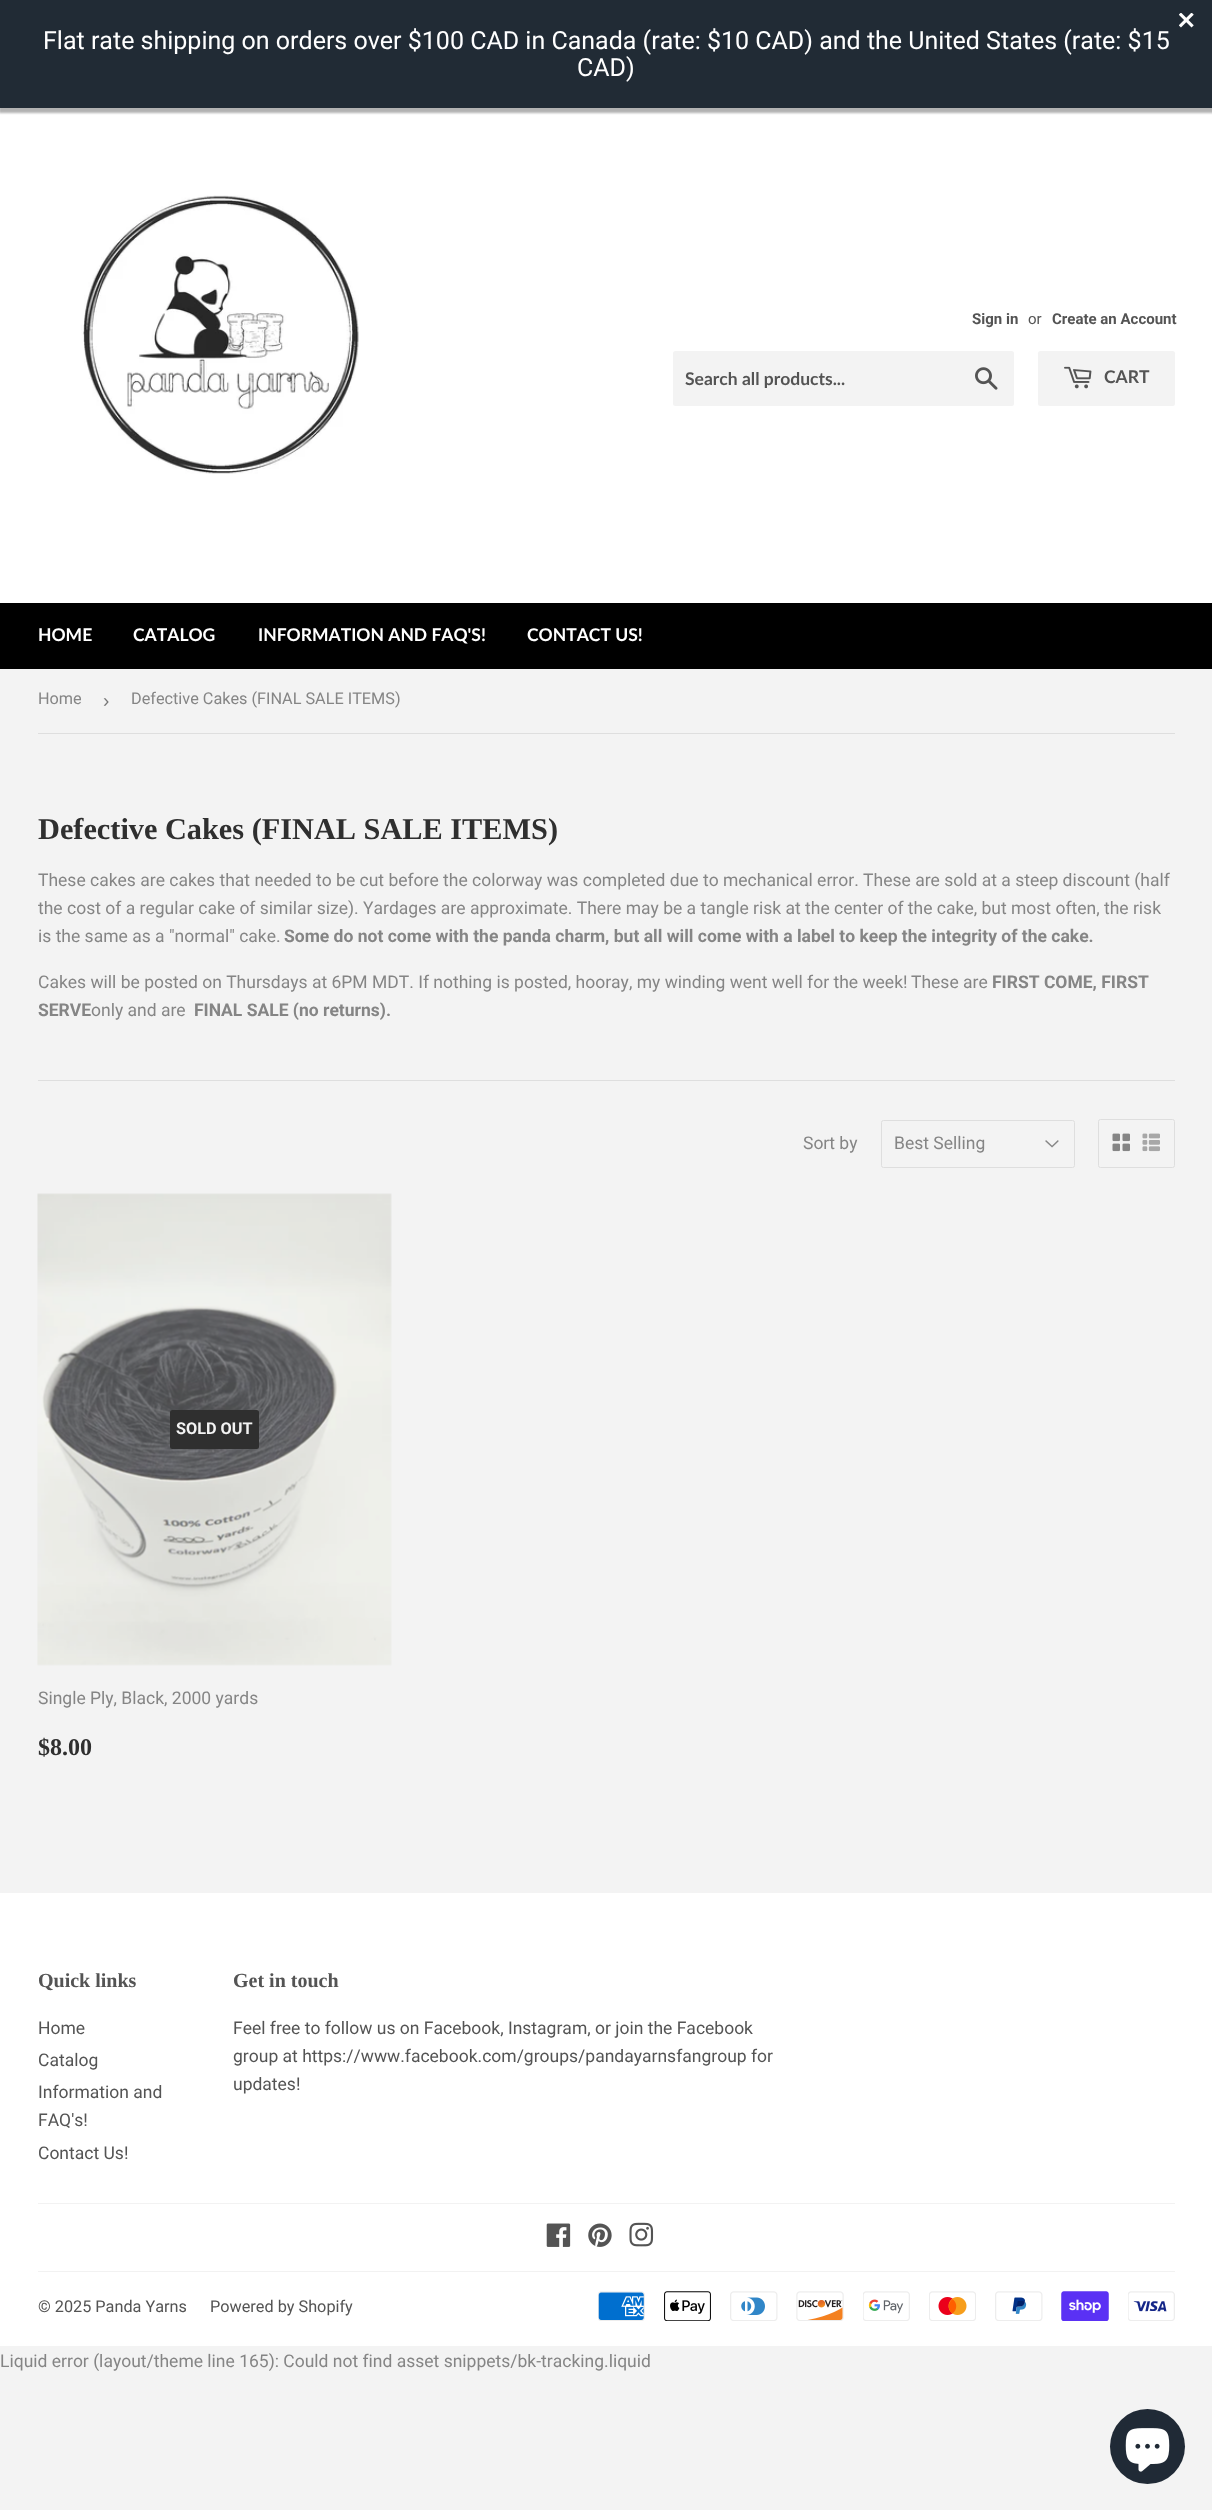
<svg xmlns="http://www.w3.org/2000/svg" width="1212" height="2510">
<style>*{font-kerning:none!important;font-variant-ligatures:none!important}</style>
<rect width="100%" height="100%" fill="#f3f3f3"/>
<rect y="108" width="1212" height="495" fill="#fff"/>
<rect x="-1" y="3" width="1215" height="110" fill="#0000004d" filter="blur(1px)"/>
<rect width="1212" height="108" fill="#212b35"/>
<image x="1179" y="13" width="15" height="15" href="media/1.png"/>
<text x="43" y="49" style="font-family:Roboto;font-size:25px;fill:#fff">Flat rate shipping on orders over $100 CAD in Canada (rate: $10 CAD) and the United States (rate: $15</text>
<text x="577" y="76" style="font-family:Roboto;font-size:25px;fill:#fff">CAD)</text>
<image x="81" y="195" width="278" height="279" href="media/2.png"/>
<text x="972" y="324" style="font-family:Roboto;font-size:15px;font-weight:bold;fill:#545454">Sign in</text>
<text x="1028" y="324" style="font-family:Roboto;font-size:15px;fill:#545454">or</text>
<text x="1052" y="324" style="font-family:Roboto;font-size:15px;font-weight:bold;fill:#545454">Create an Account</text>
<rect x="673" y="351" width="341" height="55" rx="2.5" fill="#f3f3f3"/>
<text x="685" y="385" style="font-family:Lato;font-size:17.5px;font-weight:bold;fill:#545454">Search all products...</text>
<image x="975" y="367" width="23" height="23" href="media/3.png"/>
<rect x="1038" y="351" width="137" height="55" rx="2.5" fill="#f3f3f3"/>
<image x="1064" y="366" width="28" height="23" href="media/4.png"/>
<text x="1104" y="383" style="font-family:Lato;font-size:17.5px;font-weight:bold;fill:#545454">CART</text>
<rect y="603" width="1212" height="66" fill="#000"/>
<text x="38" y="641" style="font-family:Lato;font-size:17.5px;font-weight:bold;fill:#fff">HOME</text>
<text x="133" y="641" style="font-family:Lato;font-size:17.5px;font-weight:bold;fill:#fff">CATALOG</text>
<text x="258" y="641" style="font-family:Lato;font-size:17.5px;font-weight:bold;fill:#fff">INFORMATION AND FAQ'S!</text>
<text x="527" y="641" style="font-family:Lato;font-size:17.5px;font-weight:bold;fill:#fff">CONTACT US!</text>
<rect x="38" y="733" width="1137" height="1" fill="#dedede"/>
<text x="38" y="704" style="font-family:Roboto;font-size:16.25px;fill:#858585">Home</text>
<text x="103" y="707" style="font-family:Liberation Sans;font-size:19px;fill:#767676">›</text>
<text x="131" y="704" style="font-family:Roboto;font-size:16.25px;fill:#858585">Defective Cakes (FINAL SALE ITEMS)</text>
<text x="38" y="839" style="font-family:Liberation Serif;font-size:30.3px;font-weight:bold;fill:#2f2f2f">Defective Cakes (FINAL SALE ITEMS)</text>
<text x="38" y="886" style="font-family:Roboto;font-size:17.5px;fill:#858585">These cakes are cakes that needed to be cut before the colorway was completed due to mechanical error. These are sold at a steep discount (half</text>
<text x="38" y="914" style="font-family:Roboto;font-size:17.5px;fill:#858585">the cost of a regular cake of similar size). Yardages are approximate. There may be a tangle risk at the center of the cake, but most often, the risk</text>
<text x="38" y="942" style="font-family:Roboto;font-size:17.5px;fill:#858585">is the same as a "normal" cake.</text>
<text x="284" y="942" style="font-family:Roboto;font-size:17.5px;font-weight:bold;fill:#858585">Some do not come with the panda charm, but all will come with a label to keep the integrity of the cake.</text>
<text x="38" y="988" style="font-family:Roboto;font-size:17.5px;fill:#858585">Cakes will be posted on Thursdays at 6PM MDT. If nothing is posted, hooray, my winding went well for the week!</text>
<text x="911" y="988" style="font-family:Roboto;font-size:17.5px;fill:#858585">These are</text>
<text x="992" y="988" style="font-family:Roboto;font-size:17.5px;font-weight:bold;fill:#858585">FIRST COME, FIRST</text>
<text x="38" y="1016" style="font-family:Roboto;font-size:17.5px;font-weight:bold;fill:#858585">SERVE</text>
<text x="91" y="1016" style="font-family:Roboto;font-size:17.5px;fill:#858585"> only and are</text>
<text x="194" y="1016" style="font-family:Roboto;font-size:17.5px;font-weight:bold;fill:#858585">FINAL SALE (no returns).</text>
<rect x="38" y="1080" width="1137" height="1" fill="#dedede"/>
<text x="803" y="1149" style="font-family:Roboto;font-size:17.5px;fill:#858585">Sort by</text>
<image x="1045" y="1140" width="14" height="8" href="media/5.png"/>
<rect x="881.5" y="1120.5" width="193" height="47" rx="2" fill="none" stroke="#dedede"/>
<text x="894" y="1149" style="font-family:Roboto;font-size:17.5px;fill:#858585">Best Selling</text>
<rect x="1098.5" y="1119.5" width="76" height="48" rx="2" fill="none" stroke="#dedede"/>
<image x="1112" y="1133" width="18" height="19" href="media/6.png"/>
<image x="1142" y="1133" width="18" height="19" href="media/7.png"/>
<image x="37" y="1193" width="355" height="473" href="media/8.png"/>
<rect x="170" y="1410" width="89" height="39" rx="2.5" fill="#2f2f2f"/>
<text x="176" y="1434" style="font-family:Roboto;font-size:16.25px;font-weight:bold;fill:#f3f3f3">SOLD OUT</text>
<text x="38" y="1704" style="font-family:Roboto;font-size:17.5px;fill:#858585">Single Ply, Black, 2000 yards</text>
<text x="38" y="1755" style="font-family:Liberation Serif;font-size:24px;font-weight:bold;fill:#2f2f2f">$8.00</text>
<rect y="1893" width="1212" height="453" fill="#fff"/>
<text x="38" y="1987" style="font-family:Liberation Serif;font-size:20px;font-weight:bold;fill:#545454">Quick links</text>
<text x="38" y="2034" style="font-family:Roboto;font-size:17.5px;fill:#545454">Home</text>
<text x="38" y="2066" style="font-family:Roboto;font-size:17.5px;fill:#545454">Catalog</text>
<text x="38" y="2098" style="font-family:Roboto;font-size:17.5px;fill:#545454">Information and</text>
<text x="38" y="2126" style="font-family:Roboto;font-size:17.5px;fill:#545454">FAQ's!</text>
<text x="38" y="2159" style="font-family:Roboto;font-size:17.5px;fill:#545454">Contact Us!</text>
<text x="233" y="1987" style="font-family:Liberation Serif;font-size:20px;font-weight:bold;fill:#545454">Get in touch</text>
<text x="233" y="2034" style="font-family:Roboto;font-size:17.5px;fill:#545454">Feel free to follow us on Facebook, Instagram, or join the Facebook</text>
<text x="233" y="2062" style="font-family:Roboto;font-size:17.5px;fill:#545454">group at https://www.facebook.com/groups/pandayarnsfangroup</text>
<text x="751" y="2062" style="font-family:Roboto;font-size:17.5px;fill:#545454">for</text>
<text x="233" y="2090" style="font-family:Roboto;font-size:17.5px;fill:#545454">updates!</text>
<rect x="38" y="2203" width="1137" height="1" fill="#f2f2f2"/>
<image x="546" y="2223" width="25" height="24" href="media/9.png"/>
<image x="588" y="2223" width="24" height="24" href="media/10.png"/>
<image x="629" y="2222" width="25" height="25" href="media/11.png"/>
<rect x="38" y="2271" width="1137" height="1" fill="#f2f2f2"/>
<text x="38" y="2312" style="font-family:Roboto;font-size:16.25px;fill:#545454">© 2025 Panda Yarns</text>
<text x="210" y="2312" style="font-family:Roboto;font-size:16.25px;fill:#545454">Powered by Shopify</text>
<image x="598" y="2291" width="47" height="30" href="media/12.png"/>
<image x="664" y="2291" width="47" height="30" href="media/13.png"/>
<image x="730" y="2291" width="48" height="30" href="media/14.png"/>
<image x="796" y="2291" width="48" height="30" href="media/15.png"/>
<image x="863" y="2291" width="47" height="30" href="media/16.png"/>
<image x="929" y="2291" width="47" height="30" href="media/17.png"/>
<image x="995" y="2291" width="48" height="30" href="media/18.png"/>
<image x="1061" y="2291" width="48" height="30" href="media/19.png"/>
<image x="1128" y="2291" width="47" height="30" href="media/20.png"/>
<text x="0" y="2367" style="font-family:Roboto;font-size:17.5px;fill:#858585">Liquid error (layout/theme line 165): Could not find asset snippets/bk-tracking.liquid</text>
<circle cx="1147.5" cy="2446.5" r="37.5" fill="#202a36"/>
<image x="1125" y="2428" width="45" height="44" href="media/21.png"/>
</svg>
